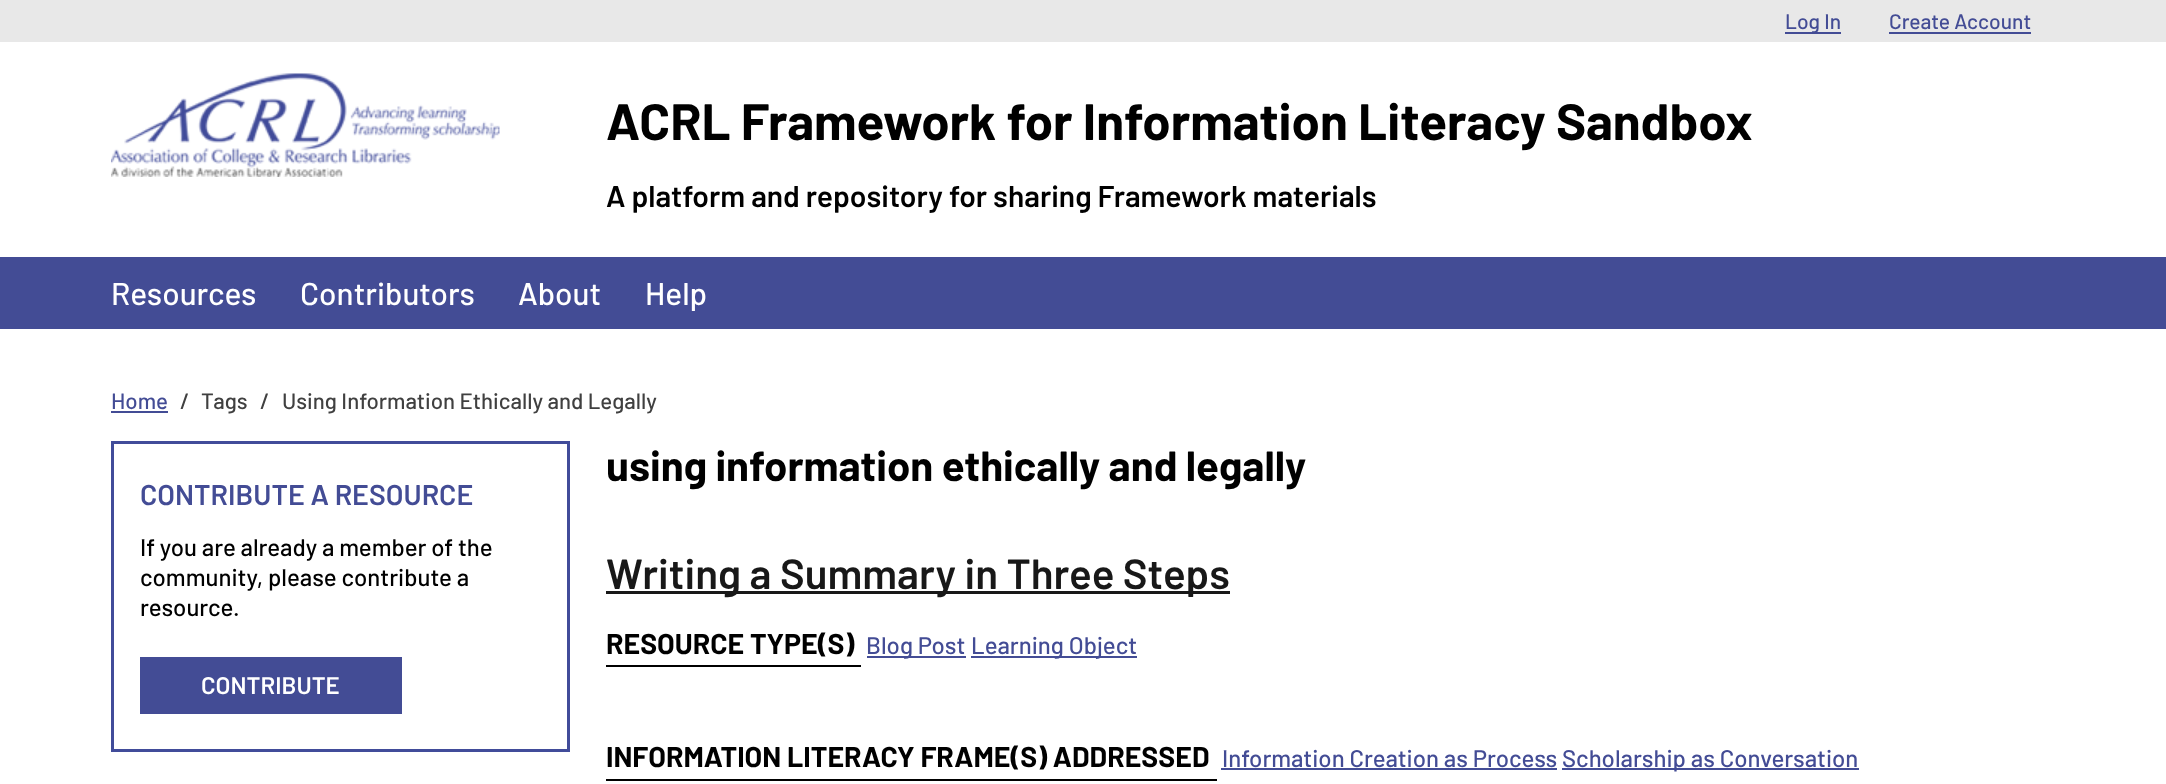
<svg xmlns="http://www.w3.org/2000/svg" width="2166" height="784">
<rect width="100%" height="100%" fill="#fff"/>
<rect width="2166" height="42" fill="#e8e8e8"/>
<rect x="1785" y="32" width="56" height="2" fill="#434c95"/>
<text x="1785" y="29" style="font-family:Barlow;font-size:21px;font-weight:500;fill:#434c95">Log In</text>
<text x="1889" y="29" style="font-family:Barlow;font-size:21px;font-weight:500;fill:#434c95">Create Account</text>
<rect x="1889" y="32" width="142" height="2" fill="#434c95"/>
<image x="111" y="73" width="389" height="104" href="media/1.png"/>
<text x="606" y="140" style="font-family:Barlow;font-size:51px;font-weight:bold;fill:#000">ACRL Framework for Information Literacy Sandbox</text>
<text x="606" y="207" style="font-family:Barlow;font-size:30px;font-weight:600;fill:#000">A platform and repository for sharing Framework materials</text>
<rect y="257" width="2166" height="72" fill="#434c95"/>
<text x="111" y="305" style="font-family:Barlow;font-size:31.5px;font-weight:500;fill:#fff">Resources</text>
<text x="300" y="305" style="font-family:Barlow;font-size:31.5px;font-weight:500;fill:#fff">Contributors</text>
<text x="518" y="305" style="font-family:Barlow;font-size:31.5px;font-weight:500;fill:#fff">About</text>
<text x="645" y="305" style="font-family:Barlow;font-size:31.5px;font-weight:500;fill:#fff">Help</text>
<text x="111" y="409" style="font-family:Barlow;font-size:22.25px;font-weight:500;fill:#434c95">Home</text>
<rect x="111" y="411" width="57" height="2" fill="#434c95"/>
<text x="180" y="409" style="font-family:Barlow;font-size:22.25px;font-weight:500;fill:#404040">/</text>
<text x="201" y="409" style="font-family:Barlow;font-size:22.25px;font-weight:500;fill:#404040">Tags</text>
<text x="260" y="409" style="font-family:Barlow;font-size:22.25px;font-weight:500;fill:#404040">/</text>
<text x="282" y="409" style="font-family:Barlow;font-size:22.25px;font-weight:500;fill:#404040">Using Information Ethically and Legally</text>
<rect x="112.5" y="442.5" width="456" height="308" fill="none" stroke="#414c9a" stroke-width="3"/>
<text x="140" y="505" style="font-family:Barlow;font-size:28.5px;font-weight:600;fill:#434c95">CONTRIBUTE A RESOURCE</text>
<text x="140" y="556" style="font-family:Barlow;font-size:24px;font-weight:500;fill:#000">If you are already a member of the</text>
<text x="140" y="586" style="font-family:Barlow;font-size:24px;font-weight:500;fill:#000">community, please contribute a</text>
<text x="140" y="616" style="font-family:Barlow;font-size:24px;font-weight:500;fill:#000">resource.</text>
<rect x="140" y="657" width="262" height="57" fill="#434c95"/>
<text x="201" y="694" style="font-family:Barlow;font-size:24px;font-weight:600;fill:#fff">CONTRIBUTE</text>
<text x="606" y="481" style="font-family:Barlow;font-size:42px;font-weight:bold;fill:#000">using information ethically and legally</text>
<rect x="606" y="591" width="624" height="3" fill="#181818"/>
<text x="606" y="589" style="font-family:Barlow;font-size:42px;font-weight:600;fill:#181818">Writing a Summary in Three Steps</text>
<rect x="606" y="665" width="255" height="2" fill="#000"/>
<text x="606" y="654" style="font-family:Barlow;font-size:28.5px;font-weight:bold;fill:#000">RESOURCE TYPE(S)</text>
<rect x="867" y="656" width="99" height="2" fill="#434c95"/>
<text x="866" y="654" style="font-family:Barlow;font-size:24px;font-weight:500;fill:#434c95">Blog Post</text>
<rect x="971" y="656" width="166" height="2" fill="#434c95"/>
<text x="971" y="654" style="font-family:Barlow;font-size:24px;font-weight:500;fill:#434c95">Learning Object</text>
<rect x="606" y="779" width="611" height="2" fill="#000"/>
<text x="606" y="767" style="font-family:Barlow;font-size:28.5px;font-weight:bold;fill:#000">INFORMATION LITERACY FRAME(S) ADDRESSED</text>
<text x="1222" y="767" style="font-family:Barlow;font-size:24px;font-weight:500;fill:#434c95">Information Creation as Process</text>
<rect x="1221" y="768" width="336" height="2" fill="#434c95"/>
<rect x="1562" y="768" width="297" height="2" fill="#434c95"/>
<text x="1562" y="767" style="font-family:Barlow;font-size:24px;font-weight:500;fill:#434c95">Scholarship as Conversation</text>
</svg>
